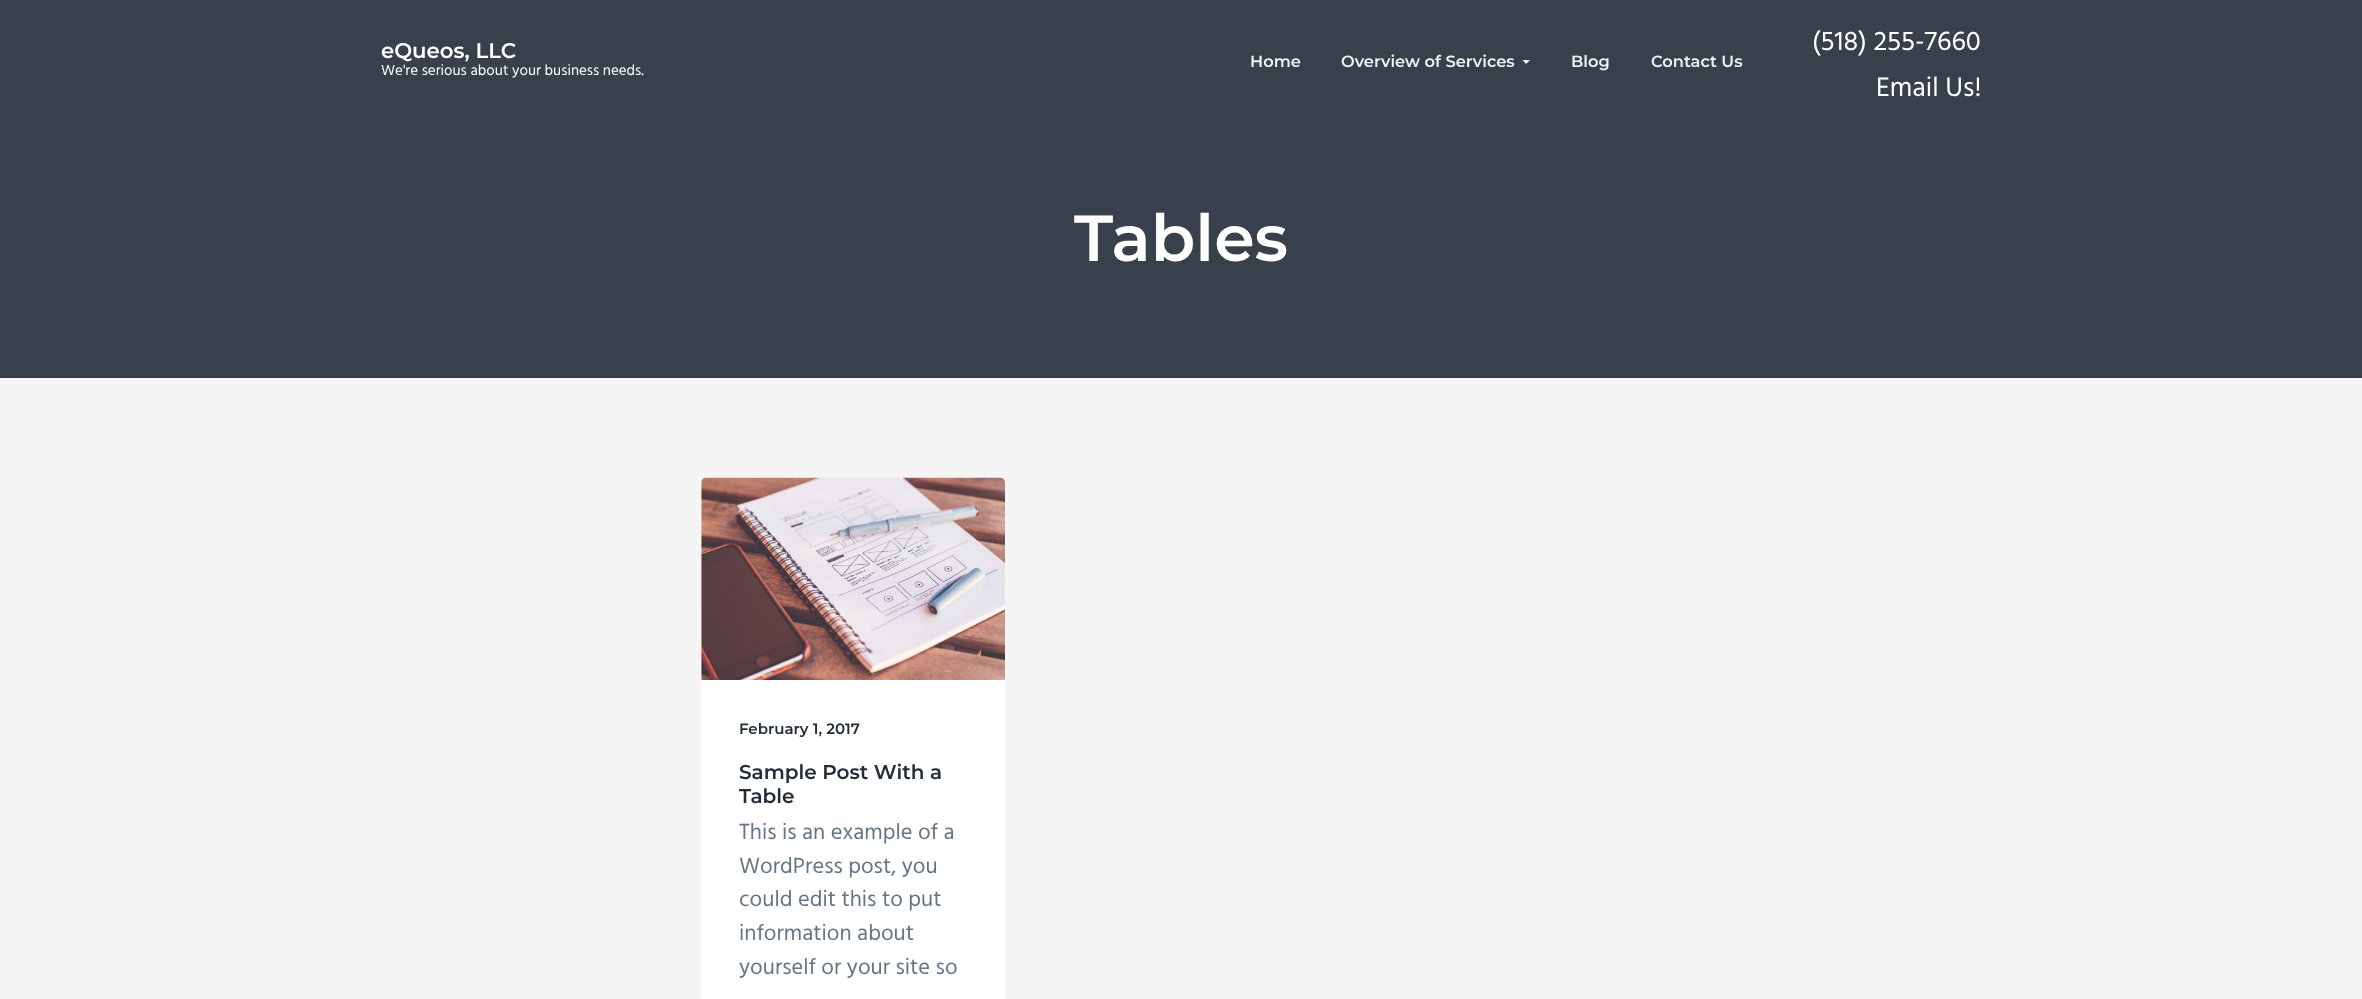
<svg xmlns="http://www.w3.org/2000/svg" width="2362" height="999">
<rect width="100%" height="100%" fill="#f5f5f6"/>
<rect width="2362" height="378" fill="#38404c"/>
<text x="381" y="58" style="font-family:Montserrat;font-size:21.25px;font-weight:100;fill:#fff">eQueos, LLC</text>
<text x="381" y="75" style="font-family:Hind;font-size:15px;fill:#fff">We're serious about your business needs.</text>
<text x="1250" y="67" style="font-family:Montserrat;font-size:16.25px;font-weight:100;fill:#f0f1f2">Home</text>
<text x="1341" y="67" style="font-family:Montserrat;font-size:16.25px;font-weight:100;fill:#f0f1f2">Overview of Services</text>
<path d="M1522.5 60h7.5l-4 4z" fill="#f6f7f8"/>
<text x="1571" y="67" style="font-family:Montserrat;font-size:16.25px;font-weight:100;fill:#f0f1f2">Blog</text>
<text x="1651" y="67" style="font-family:Montserrat;font-size:16.25px;font-weight:100;fill:#f0f1f2">Contact Us</text>
<text x="1812" y="50" style="font-family:Hind;font-size:27.5px;fill:#fff">(518) 255-7660</text>
<text x="1876" y="96" style="font-family:Hind;font-size:27.5px;fill:#fff">Email Us!</text>
<text x="1074" y="261" style="font-family:Montserrat;font-size:65px;font-weight:100;fill:#fff">Tables</text>
<rect x="701" y="478" width="304" height="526" rx="5" fill="#fff"/>
<image x="701" y="477" width="304" height="203" href="media/1.png"/>
<text x="739" y="734" style="font-family:Montserrat;font-size:15px;font-weight:100;fill:#232c39">February 1, 2017</text>
<text x="739" y="779" style="font-family:Montserrat;font-size:20px;font-weight:100;fill:#232c39">Sample Post With a</text>
<text x="739" y="803" style="font-family:Montserrat;font-size:20px;font-weight:100;fill:#232c39">Table</text>
<text x="739" y="839" style="font-family:Hind;font-size:22.5px;fill:#647585">This is an example of a</text>
<text x="739" y="873" style="font-family:Hind;font-size:22.5px;fill:#647585">WordPress post, you</text>
<text x="739" y="906" style="font-family:Hind;font-size:22.5px;fill:#647585">could edit this to put</text>
<text x="739" y="940" style="font-family:Hind;font-size:22.5px;fill:#647585">information about</text>
<text x="739" y="974" style="font-family:Hind;font-size:22.5px;fill:#647585">yourself or your site so</text>
</svg>
